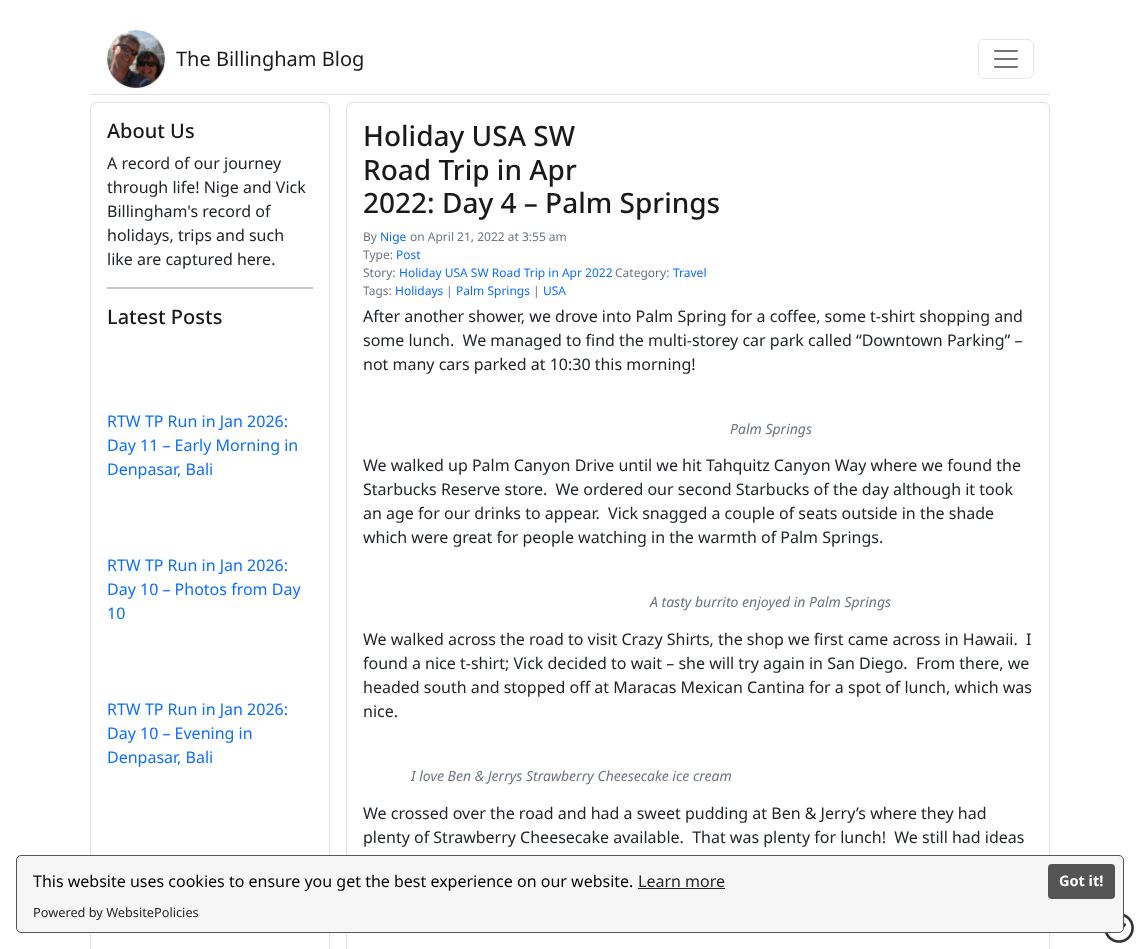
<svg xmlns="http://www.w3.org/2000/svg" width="1140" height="949">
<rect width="100%" height="100%" fill="#fff"/>
<rect x="90" y="94" width="960" height="1" fill="#dee2e6"/>
<image x="106" y="29" width="60" height="60" href="media/1.png"/>
<text x="176" y="66" style="font-family:Noto Sans;font-size:20px;fill:#1a1a1a">The Billingham Blog</text>
<rect x="978.5" y="39.5" width="55" height="39" rx="5.5" fill="none" stroke="#e6e6e6"/>
<image x="994" y="50" width="24" height="18" href="media/2.png"/>
<rect x="90.5" y="102.5" width="239" height="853" rx="5.5" fill="none" stroke="#dee2e6"/>
<text x="107" y="138" style="font-family:Noto Sans;font-size:20px;font-weight:500;fill:#1a1a1a">About Us</text>
<text x="107" y="169" style="font-family:Noto Sans;font-size:16px;fill:#212529">A record of our journey</text>
<text x="107" y="193" style="font-family:Noto Sans;font-size:16px;fill:#212529">through life! Nige and Vick</text>
<text x="107" y="217" style="font-family:Noto Sans;font-size:16px;fill:#212529">Billingham's record of</text>
<text x="107" y="241" style="font-family:Noto Sans;font-size:16px;fill:#212529">holidays, trips and such</text>
<text x="107" y="265" style="font-family:Noto Sans;font-size:16px;fill:#212529">like are captured here.</text>
<rect x="107" y="287" width="206" height="2" fill="#c8c9ca"/>
<text x="107" y="324" style="font-family:Noto Sans;font-size:20px;font-weight:500;fill:#1a1a1a">Latest Posts</text>
<text x="107" y="427" style="font-family:Noto Sans;font-size:16px;fill:#0d6efd">RTW TP Run in Jan 2026:</text>
<text x="107" y="451" style="font-family:Noto Sans;font-size:16px;fill:#0d6efd">Day 11 – Early Morning in</text>
<text x="107" y="475" style="font-family:Noto Sans;font-size:16px;fill:#0d6efd">Denpasar, Bali</text>
<text x="107" y="571" style="font-family:Noto Sans;font-size:16px;fill:#0d6efd">RTW TP Run in Jan 2026:</text>
<text x="107" y="595" style="font-family:Noto Sans;font-size:16px;fill:#0d6efd">Day 10 – Photos from Day</text>
<text x="107" y="619" style="font-family:Noto Sans;font-size:16px;fill:#0d6efd">10</text>
<text x="107" y="715" style="font-family:Noto Sans;font-size:16px;fill:#0d6efd">RTW TP Run in Jan 2026:</text>
<text x="107" y="739" style="font-family:Noto Sans;font-size:16px;fill:#0d6efd">Day 10 – Evening in</text>
<text x="107" y="763" style="font-family:Noto Sans;font-size:16px;fill:#0d6efd">Denpasar, Bali</text>
<rect x="346.5" y="102.5" width="703" height="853" rx="5.5" fill="none" stroke="#dee2e6"/>
<text x="363" y="146" style="font-family:Noto Sans;font-size:28px;font-weight:500;fill:#1a1a1a">Holiday USA SW</text>
<text x="363" y="180" style="font-family:Noto Sans;font-size:28px;font-weight:500;fill:#1a1a1a">Road Trip in Apr</text>
<text x="363" y="213" style="font-family:Noto Sans;font-size:28px;font-weight:500;fill:#1a1a1a">2022: Day 4 – Palm Springs</text>
<text x="363" y="241" style="font-family:Noto Sans;font-size:12px;fill:#6c757d">By</text>
<text x="380" y="241" style="font-family:Noto Sans;font-size:12px;fill:#0d6efd">Nige</text>
<text x="410" y="241" style="font-family:Noto Sans;font-size:12px;fill:#6c757d">on April 21, 2022 at 3:55 am</text>
<text x="363" y="259" style="font-family:Noto Sans;font-size:12px;fill:#6c757d">Type:</text>
<text x="396" y="259" style="font-family:Noto Sans;font-size:12px;fill:#0d6efd">Post</text>
<text x="363" y="277" style="font-family:Noto Sans;font-size:12px;fill:#6c757d">Story:</text>
<text x="399" y="277" style="font-family:Noto Sans;font-size:12px;fill:#0d6efd">Holiday USA SW Road Trip in Apr 2022</text>
<text x="615" y="277" style="font-family:Noto Sans;font-size:12px;fill:#6c757d">Category:</text>
<text x="673" y="277" style="font-family:Noto Sans;font-size:12px;fill:#0d6efd">Travel</text>
<text x="363" y="295" style="font-family:Noto Sans;font-size:12px;fill:#6c757d">Tags:</text>
<text x="395" y="295" style="font-family:Noto Sans;font-size:12px;fill:#0d6efd">Holidays</text>
<text x="446" y="295" style="font-family:Noto Sans;font-size:12px;fill:#6c757d">|</text>
<text x="456" y="295" style="font-family:Noto Sans;font-size:12px;fill:#0d6efd">Palm Springs</text>
<text x="533" y="295" style="font-family:Noto Sans;font-size:12px;fill:#6c757d">|</text>
<text x="543" y="295" style="font-family:Noto Sans;font-size:12px;fill:#0d6efd">USA</text>
<text x="363" y="322" style="font-family:Noto Sans;font-size:16px;fill:#212529">After another shower, we drove into Palm Spring for a coffee, some t-shirt shopping and</text>
<text x="363" y="346" style="font-family:Noto Sans;font-size:16px;fill:#212529" xml:space="preserve">some lunch.  We managed to find the multi-storey car park called “Downtown Parking” –</text>
<text x="363" y="370" style="font-family:Noto Sans;font-size:16px;fill:#212529">not many cars parked at 10:30 this morning!</text>
<text x="730" y="434" style="font-family:Noto Sans;font-size:14px;font-style:italic;fill:#6c757d">Palm Springs</text>
<text x="363" y="471" style="font-family:Noto Sans;font-size:16px;fill:#212529">We walked up Palm Canyon Drive until we hit Tahquitz Canyon Way where we found the</text>
<text x="363" y="495" style="font-family:Noto Sans;font-size:16px;fill:#212529" xml:space="preserve">Starbucks Reserve store.  We ordered our second Starbucks of the day although it took</text>
<text x="363" y="519" style="font-family:Noto Sans;font-size:16px;fill:#212529" xml:space="preserve">an age for our drinks to appear.  Vick snagged a couple of seats outside in the shade</text>
<text x="363" y="543" style="font-family:Noto Sans;font-size:16px;fill:#212529">which were great for people watching in the warmth of Palm Springs.</text>
<text x="650" y="607" style="font-family:Noto Sans;font-size:14px;font-style:italic;fill:#6c757d">A tasty burrito enjoyed in Palm Springs</text>
<text x="363" y="645" style="font-family:Noto Sans;font-size:16px;fill:#212529" xml:space="preserve">We walked across the road to visit Crazy Shirts, the shop we first came across in Hawaii.  I</text>
<text x="363" y="669" style="font-family:Noto Sans;font-size:16px;fill:#212529" xml:space="preserve">found a nice t-shirt; Vick decided to wait – she will try again in San Diego.  From there, we</text>
<text x="363" y="693" style="font-family:Noto Sans;font-size:16px;fill:#212529">headed south and stopped off at Maracas Mexican Cantina for a spot of lunch, which was</text>
<text x="363" y="717" style="font-family:Noto Sans;font-size:16px;fill:#212529">nice.</text>
<text x="411" y="781" style="font-family:Noto Sans;font-size:14px;font-style:italic;fill:#6c757d">I love Ben &amp; Jerrys Strawberry Cheesecake ice cream</text>
<text x="363" y="819" style="font-family:Noto Sans;font-size:16px;fill:#212529">We crossed over the road and had a sweet pudding at Ben &amp; Jerry’s where they had</text>
<text x="363" y="843" style="font-family:Noto Sans;font-size:16px;fill:#212529" xml:space="preserve">plenty of Strawberry Cheesecake available.  That was plenty for lunch!  We still had ideas</text>
<image x="1105" y="913" width="29" height="30" href="media/3.png"/>
<rect x="16.5" y="855.5" width="1107" height="77" rx="4.5" fill="#f6f6f6" stroke="#555"/>
<text x="33" y="887" style="font-family:Noto Sans;font-size:16px;fill:#000">This website uses cookies to ensure you get the best experience on our website.</text>
<text x="638" y="887" style="font-family:Noto Sans;font-size:16px;fill:#212529">Learn more</text>
<rect x="638" y="888" width="87" height="1" fill="#252525"/>
<rect x="1048" y="864" width="67" height="35" rx="4" fill="#555"/>
<text x="1059" y="886" style="font-family:Noto Sans;font-size:14.5px;font-weight:bold;fill:#fff">Got it!</text>
<text x="33" y="917" style="font-family:Noto Sans;font-size:12.75px;fill:#212529">Powered by WebsitePolicies</text>
</svg>
